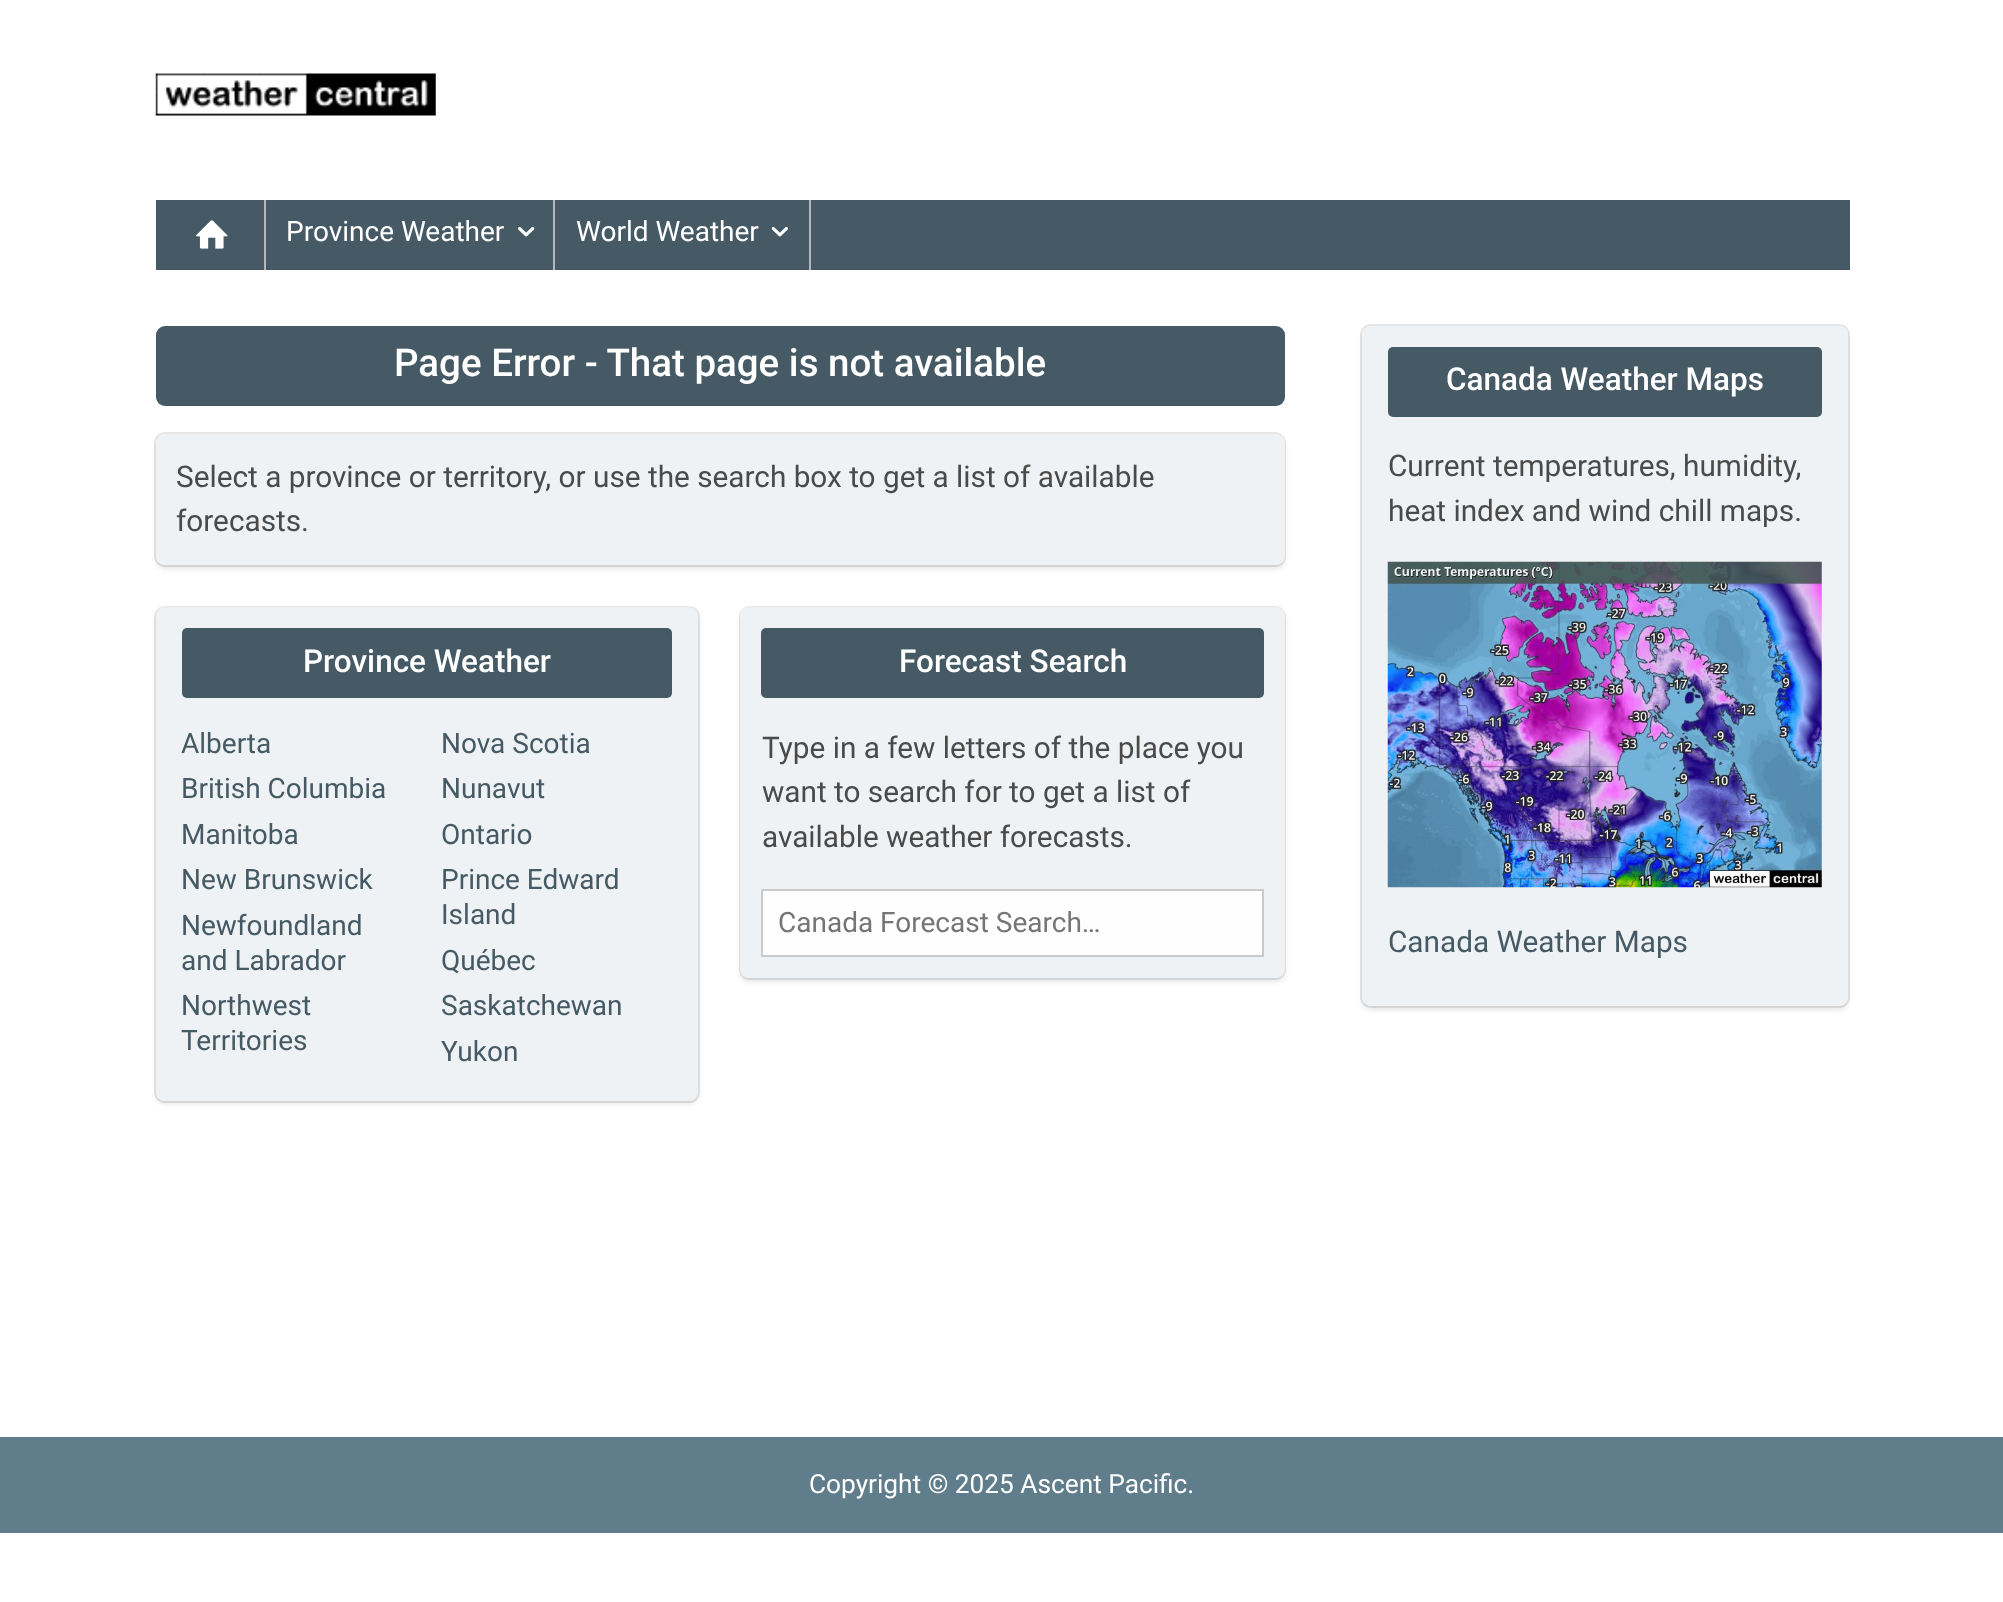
<svg xmlns="http://www.w3.org/2000/svg" width="2003" height="1602">
<defs>
<clipPath id="clip1"><path d="M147 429h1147v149h-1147zm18 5h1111c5 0 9 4 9 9v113c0 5-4 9-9 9h-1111c-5 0-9-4-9-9v-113c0-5 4-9 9-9z" clip-rule="evenodd"/></clipPath>
<clipPath id="clip2"><path d="M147 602h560v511h-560zm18 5h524c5 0 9 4 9 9v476c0 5-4 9-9 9h-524c-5 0-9-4-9-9v-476c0-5 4-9 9-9z" clip-rule="evenodd"/></clipPath>
<clipPath id="clip3"><path d="M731 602h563v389h-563zm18 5h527c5 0 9 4 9 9v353c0 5-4 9-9 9h-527c-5 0-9-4-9-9v-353c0-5 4-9 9-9z" clip-rule="evenodd"/></clipPath>
<clipPath id="clip4"><path d="M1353 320h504v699h-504zm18 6h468c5 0 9 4 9 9v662c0 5-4 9-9 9h-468c-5 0-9-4-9-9v-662c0-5 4-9 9-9z" clip-rule="evenodd"/></clipPath>
</defs>
<rect width="100%" height="100%" fill="#fff"/>
<image x="155" y="73" width="281" height="43" href="media/1.png"/>
<rect x="156" y="200" width="1694" height="70" fill="#455a64"/>
<rect x="264" y="200" width="2" height="70" fill="#b6b6b6"/>
<image x="196" y="220" width="32" height="29" href="media/2.png"/>
<rect x="553" y="200" width="2" height="70" fill="#b6b6b6"/>
<text x="286" y="241" style="font-family:Roboto;font-size:28px;fill:#fff">Province Weather</text>
<image x="518" y="226" width="17" height="11" href="media/3.png"/>
<rect x="809" y="200" width="2" height="70" fill="#b6b6b6"/>
<text x="576" y="241" style="font-family:Roboto;font-size:28px;fill:#fff">World Weather</text>
<image x="771" y="226" width="17" height="11" href="media/4.png"/>
<rect x="156" y="326" width="1129" height="80" rx="9" fill="#455a64"/>
<text x="394" y="376" style="font-family:Roboto;font-size:38.5px;font-weight:500;fill:#fff">Page Error - That page is not available</text>
<rect x="155" y="433" width="1130" height="133" rx="10" fill="none" stroke="#e7e7e7" stroke-width="2"/>
<g clip-path="url(#clip1)">
<rect x="156" y="438" width="1129" height="131" rx="9" fill="#0a0a0a1a" filter="blur(2.5px)"/>
</g>
<rect x="156" y="434" width="1129" height="131" rx="9" fill="#edf1f3f2"/>
<text x="176" y="487" style="font-family:Roboto;font-size:29.75px;fill:#4a4a4a">Select a province or territory, or use the search box to get a list of available</text>
<text x="176" y="531" style="font-family:Roboto;font-size:29.75px;fill:#4a4a4a">forecasts.</text>
<rect x="155" y="607" width="544" height="495" rx="10" fill="none" stroke="#e7e7e7" stroke-width="2"/>
<g clip-path="url(#clip2)">
<rect x="156" y="611" width="542" height="493" rx="9" fill="#0a0a0a1a" filter="blur(2.5px)"/>
</g>
<rect x="156" y="607" width="542" height="494" rx="9" fill="#edf1f3f2"/>
<rect x="182" y="628" width="490" height="70" rx="5" fill="#455a64"/>
<text x="303" y="672" style="font-family:Roboto;font-size:31.5px;font-weight:500;fill:#fff">Province Weather</text>
<text x="181" y="753" style="font-family:Roboto;font-size:28px;fill:#455a64">Alberta</text>
<text x="441" y="753" style="font-family:Roboto;font-size:28px;fill:#455a64">Nova Scotia</text>
<text x="181" y="798" style="font-family:Roboto;font-size:28px;fill:#455a64">British Columbia</text>
<text x="441" y="798" style="font-family:Roboto;font-size:28px;fill:#455a64">Nunavut</text>
<text x="181" y="844" style="font-family:Roboto;font-size:28px;fill:#455a64">Manitoba</text>
<text x="441" y="844" style="font-family:Roboto;font-size:28px;fill:#455a64">Ontario</text>
<text x="181" y="889" style="font-family:Roboto;font-size:28px;fill:#455a64">New Brunswick</text>
<text x="441" y="889" style="font-family:Roboto;font-size:28px;fill:#455a64">Prince Edward</text>
<text x="441" y="924" style="font-family:Roboto;font-size:28px;fill:#455a64">Island</text>
<text x="181" y="935" style="font-family:Roboto;font-size:28px;fill:#455a64">Newfoundland</text>
<text x="181" y="970" style="font-family:Roboto;font-size:28px;fill:#455a64">and Labrador</text>
<text x="441" y="970" style="font-family:Roboto;font-size:28px;fill:#455a64">Québec</text>
<text x="181" y="1015" style="font-family:Roboto;font-size:28px;fill:#455a64">Northwest</text>
<text x="181" y="1050" style="font-family:Roboto;font-size:28px;fill:#455a64">Territories</text>
<text x="441" y="1015" style="font-family:Roboto;font-size:28px;fill:#455a64">Saskatchewan</text>
<text x="441" y="1061" style="font-family:Roboto;font-size:28px;fill:#455a64">Yukon</text>
<rect x="740" y="607" width="545" height="372" rx="10" fill="none" stroke="#e7e7e7" stroke-width="2"/>
<g clip-path="url(#clip3)">
<rect x="740" y="611" width="545" height="371" rx="9" fill="#0a0a0a1a" filter="blur(2.5px)"/>
</g>
<rect x="740" y="607" width="545" height="371" rx="9" fill="#edf1f3f2"/>
<rect x="761" y="628" width="503" height="70" rx="5" fill="#455a64"/>
<text x="899" y="672" style="font-family:Roboto;font-size:31.5px;font-weight:500;fill:#fff">Forecast Search</text>
<text x="762" y="758" style="font-family:Roboto;font-size:29.75px;fill:#4a4a4a">Type in a few letters of the place you</text>
<text x="762" y="802" style="font-family:Roboto;font-size:29.75px;fill:#4a4a4a">want to search for to get a list of</text>
<text x="762" y="847" style="font-family:Roboto;font-size:29.75px;fill:#4a4a4a">available weather forecasts.</text>
<rect x="762" y="890" width="501" height="66" fill="#fefefe" stroke="#cacaca" stroke-width="2"/>
<text x="778" y="932" style="font-family:Roboto;font-size:28px;fill:#757575">Canada Forecast Search…</text>
<rect x="1361" y="325" width="488" height="682" rx="10" fill="none" stroke="#e7e7e7" stroke-width="2"/>
<g clip-path="url(#clip4)">
<rect x="1362" y="329" width="486" height="681" rx="9" fill="#0a0a0a1a" filter="blur(2.5px)"/>
</g>
<rect x="1362" y="326" width="486" height="680" rx="9" fill="#edf1f3f2"/>
<rect x="1388" y="347" width="434" height="70" rx="5" fill="#455a64"/>
<text x="1446" y="390" style="font-family:Roboto;font-size:31.5px;font-weight:500;fill:#fff">Canada Weather Maps</text>
<text x="1388" y="476" style="font-family:Roboto;font-size:29.75px;fill:#4a4a4a">Current temperatures, humidity,</text>
<text x="1388" y="521" style="font-family:Roboto;font-size:29.75px;fill:#4a4a4a">heat index and wind chill maps.</text>
<image x="1387" y="561" width="435" height="327" href="media/5.png"/>
<text x="1388" y="952" style="font-family:Roboto;font-size:29.75px;fill:#455a64">Canada Weather Maps</text>
<rect y="1437" width="2003" height="96" fill="#607d8b"/>
<text x="809" y="1493" style="font-family:Roboto;font-size:26.25px;fill:#fff">Copyright © 2025 Ascent Pacific.</text>
</svg>
